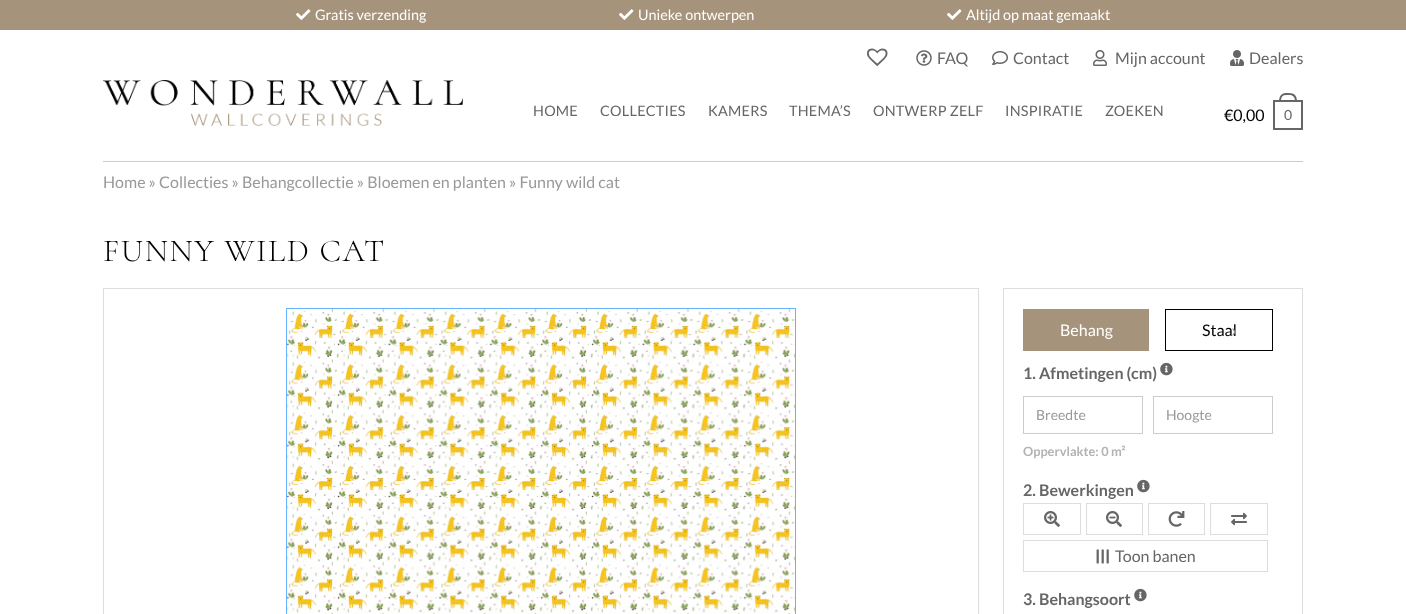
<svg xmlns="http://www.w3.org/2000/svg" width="1406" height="614">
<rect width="100%" height="100%" fill="#fff"/>
<rect width="1406" height="30" fill="#a5937b"/>
<image x="296" y="9" width="15" height="11" href="media/1.png"/>
<text x="315" y="20" style="font-family:Lato;font-size:14.4px;fill:#fff">Gratis verzending</text>
<image x="619" y="9" width="15" height="11" href="media/1.png"/>
<text x="638" y="20" style="font-family:Lato;font-size:14.4px;fill:#fff">Unieke ontwerpen</text>
<image x="947" y="9" width="15" height="11" href="media/1.png"/>
<text x="966" y="20" style="font-family:Lato;font-size:14.4px;fill:#fff">Altijd op maat gemaakt</text>
<image x="867" y="48" width="21" height="19" href="media/2.png"/>
<image x="916" y="50" width="16" height="16" href="media/3.png"/>
<text x="937" y="64" style="font-family:Lato;font-size:16px;fill:#666">FAQ</text>
<image x="992" y="51" width="16" height="14" href="media/4.png"/>
<text x="1013" y="64" style="font-family:Lato;font-size:16px;fill:#666">Contact</text>
<image x="1093" y="50" width="14" height="16" href="media/5.png"/>
<text x="1115" y="64" style="font-family:Lato;font-size:16px;fill:#666">Mijn account</text>
<image x="1230" y="50" width="14" height="16" href="media/6.png"/>
<text x="1249" y="64" style="font-family:Lato;font-size:16px;fill:#666">Dealers</text>
<image x="103" y="80" width="360" height="46" href="media/7.png"/>
<text x="533" y="116" style="font-family:Lato;font-size:14.4px;letter-spacing:0.25px;fill:#666">HOME</text>
<text x="600" y="116" style="font-family:Lato;font-size:14.4px;letter-spacing:0.25px;fill:#666">COLLECTIES</text>
<text x="708" y="116" style="font-family:Lato;font-size:14.4px;letter-spacing:0.25px;fill:#666">KAMERS</text>
<text x="789" y="116" style="font-family:Lato;font-size:14.4px;letter-spacing:0.25px;fill:#666">THEMA’S</text>
<text x="873" y="116" style="font-family:Lato;font-size:14.4px;letter-spacing:0.25px;fill:#666">ONTWERP ZELF</text>
<text x="1005" y="116" style="font-family:Lato;font-size:14.4px;letter-spacing:0.25px;fill:#666">INSPIRATIE</text>
<text x="1105" y="116" style="font-family:Lato;font-size:14.4px;letter-spacing:0.25px;fill:#666">ZOEKEN</text>
<text x="1224" y="121" style="font-family:Lato;font-size:16px;fill:#000">€0,00</text>
<rect x="1274" y="101" width="28" height="28" fill="none" stroke="#666" stroke-width="2"/>
<path d="M1286 93c7 0 11 .5 11 9h-18c0-4.5 1.5-9 7-9zm0 2c6 0 9 0 9 7h-14c0-3.5 .5-7 5-7z" fill="#666" fill-rule="evenodd"/>
<text x="1284" y="120" style="font-family:Lato;font-size:14px;fill:#666">0</text>
<rect x="103" y="161" width="1200" height="1" fill="#ccc"/>
<text x="103" y="188" style="font-family:Lato;font-size:16px;fill:#999">Home » Collecties » Behangcollectie » Bloemen en planten » Funny wild cat</text>
<text x="103" y="261" style="font-family:Cormorant;font-size:32px;font-weight:300;letter-spacing:1.6px;fill:#000">FUNNY WILD CAT</text>
<rect x="103.5" y="288.5" width="875" height="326" fill="none" stroke="#ddd"/>
<rect x="286.5" y="308.5" width="509" height="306" fill="none" stroke="#66b3ff"/>
<image x="287" y="309" width="508" height="305" href="media/8.png"/>
<rect x="1003.5" y="288.5" width="299" height="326" fill="none" stroke="#ddd"/>
<rect x="1023" y="309" width="126" height="42" fill="#a5937b"/>
<text x="1060" y="336" style="font-family:Lato;font-size:16px;fill:#fff">Behang</text>
<text x="1107" y="337" style="font-family:Lato;font-size:19px;fill:#cdc3b5">›</text>
<rect x="1165.5" y="309.5" width="107" height="41" fill="none" stroke="#000"/>
<text x="1202" y="336" style="font-family:Lato;font-size:16px;fill:#000">Staal</text>
<text x="1231" y="337" style="font-family:Lato;font-size:19px;fill:#999">›</text>
<text x="1023" y="379" style="font-family:Lato;font-size:16px;font-weight:bold;fill:#666">1. Afmetingen (cm)</text>
<image x="1160" y="362" width="13" height="14" href="media/9.png"/>
<rect x="1023.5" y="396.5" width="119" height="37" fill="none" stroke="#ccc"/>
<text x="1036" y="420" style="font-family:Lato;font-size:14px;fill:#999">Breedte</text>
<rect x="1153.5" y="396.5" width="119" height="37" fill="none" stroke="#ccc"/>
<text x="1166" y="420" style="font-family:Lato;font-size:14px;fill:#999">Hoogte</text>
<text x="1023" y="456" style="font-family:Lato;font-size:12.75px;font-weight:bold;fill:#b3b3b3">Oppervlakte: 0 m²</text>
<text x="1023" y="496" style="font-family:Lato;font-size:16px;font-weight:bold;fill:#666">2. Bewerkingen</text>
<image x="1137" y="479" width="13" height="14" href="media/9.png"/>
<rect x="1023.5" y="503.5" width="57" height="31" fill="none" stroke="#ddd"/>
<image x="1044" y="511" width="16" height="16" href="media/10.png"/>
<rect x="1086.5" y="503.5" width="56" height="31" fill="none" stroke="#ddd"/>
<image x="1106" y="511" width="16" height="16" href="media/11.png"/>
<rect x="1148.5" y="503.5" width="56" height="31" fill="none" stroke="#ddd"/>
<image x="1168" y="511" width="17" height="16" href="media/12.png"/>
<rect x="1210.5" y="503.5" width="57" height="31" fill="none" stroke="#ddd"/>
<image x="1231" y="512" width="16" height="14" href="media/13.png"/>
<rect x="1023.5" y="540.5" width="244" height="31" fill="none" stroke="#ddd"/>
<image x="1096" y="549" width="13" height="15" href="media/14.png"/>
<text x="1115" y="562" style="font-family:Lato;font-size:16px;fill:#666">Toon banen</text>
<text x="1023" y="605" style="font-family:Lato;font-size:16px;font-weight:bold;fill:#666">3. Behangsoort</text>
<image x="1134" y="588" width="13" height="14" href="media/9.png"/>
</svg>
